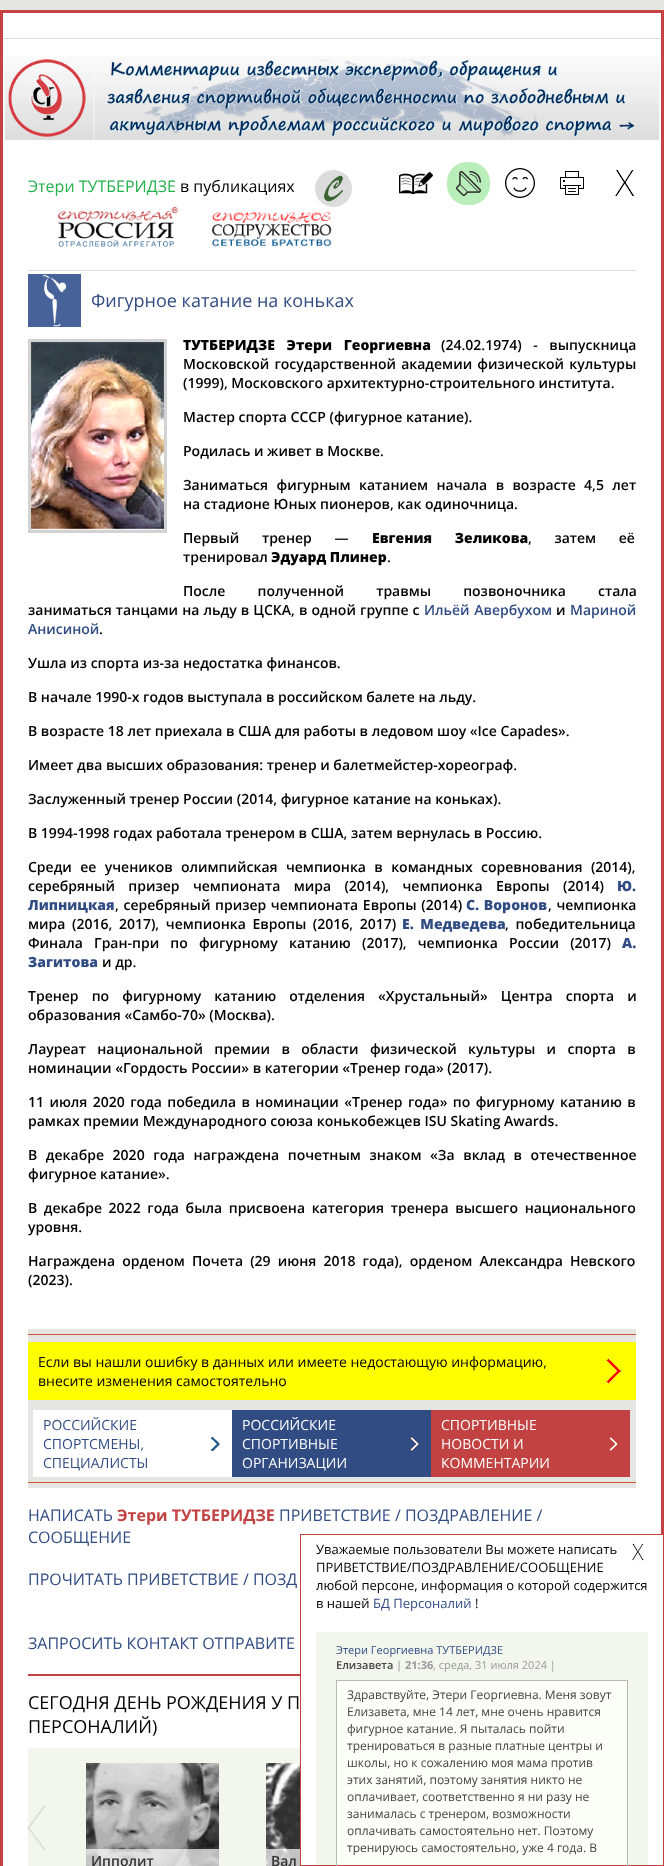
<svg xmlns="http://www.w3.org/2000/svg" width="664" height="1866">
<rect width="100%" height="100%" fill="#e5e5e3"/>
<rect x="1.5" y="11.5" width="661" height="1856" fill="#fff" stroke="#c44242" stroke-width="3"/>
<rect x="3" y="38" width="658" height="1" fill="#ddd"/>
<image x="5" y="56" width="654" height="84" href="media/1.png"/>
<text x="28" y="192" style="font-family:Open Sans;font-size:16px;fill:#22b14c">Этери ТУТБЕРИДЗЕ</text>
<text x="180" y="192" style="font-family:Open Sans;font-size:16px;fill:#010101">в публикациях</text>
<image x="315" y="170" width="37" height="37" href="media/2.png"/>
<image x="399" y="171" width="34" height="24" href="media/3.png"/>
<rect x="447" y="162" width="43" height="43" rx="20" fill="#b9edb9"/>
<image x="456" y="171" width="25" height="25" href="media/4.png"/>
<image x="505" y="168" width="30" height="30" href="media/5.png"/>
<image x="560" y="171" width="24" height="24" href="media/6.png"/>
<image x="615" y="170" width="19" height="26" href="media/7.png"/>
<image x="58" y="207" width="120" height="40" href="media/8.png"/>
<image x="212" y="211" width="120" height="36" href="media/9.png"/>
<rect x="28" y="270" width="608" height="1" fill="#ddd"/>
<image x="28" y="274" width="53" height="53" href="media/10.png"/>
<text x="91" y="307" style="font-family:Open Sans;font-size:18px;fill:#314c83">Фигурное катание на коньках</text>
<rect x="29.5" y="340.5" width="136" height="191" fill="none" stroke="#d2d2d2" stroke-width="3"/>
<image x="31" y="342" width="133" height="188" href="media/11.png"/>
<text x="183" y="350" word-spacing="8" style="font-family:Open Sans;font-size:14px;font-weight:800;fill:#010101">ТУТБЕРИДЗЕ Этери Георгиевна</text>
<text x="441" y="350" word-spacing="8" style="font-family:Open Sans;font-size:14px;font-weight:600;fill:#010101">(24.02.1974) - выпускница</text>
<text x="183" y="369" word-spacing="1.5" style="font-family:Open Sans;font-size:14px;font-weight:600;fill:#010101">Московской государственной академии физической культуры</text>
<text x="183" y="388" style="font-family:Open Sans;font-size:14px;font-weight:600;fill:#010101">(1999), Московского архитектурно-строительного института.</text>
<text x="183" y="422" style="font-family:Open Sans;font-size:14px;font-weight:600;fill:#010101">Мастер спорта СССР (фигурное катание).</text>
<text x="183" y="456" style="font-family:Open Sans;font-size:14px;font-weight:600;fill:#010101">Родилась и живет в Москве.</text>
<text x="183" y="490" word-spacing="4.75" style="font-family:Open Sans;font-size:14px;font-weight:600;fill:#010101">Заниматься фигурным катанием начала в возрасте 4,5 лет</text>
<text x="183" y="509" style="font-family:Open Sans;font-size:14px;font-weight:600;fill:#010101">на стадионе Юных пионеров, как одиночница.</text>
<text x="183" y="543" word-spacing="19" style="font-family:Open Sans;font-size:14px;font-weight:600;fill:#010101">Первый тренер —</text>
<text x="372" y="543" word-spacing="19" style="font-family:Open Sans;font-size:14px;font-weight:800;fill:#010101">Евгения Зеликова</text>
<text x="528" y="543" word-spacing="19" style="font-family:Open Sans;font-size:14px;font-weight:600;fill:#010101">, затем её</text>
<text x="183" y="562" style="font-family:Open Sans;font-size:14px;font-weight:600;fill:#010101">тренировал</text>
<text x="271" y="562" style="font-family:Open Sans;font-size:14px;font-weight:800;fill:#010101">Эдуард Плинер</text>
<text x="387" y="562" style="font-family:Open Sans;font-size:14px;font-weight:600;fill:#010101">.</text>
<text x="183" y="596" word-spacing="28.5" style="font-family:Open Sans;font-size:14px;font-weight:600;fill:#010101">После полученной травмы позвоночника стала</text>
<text x="28" y="615" word-spacing="0.5" style="font-family:Open Sans;font-size:14px;font-weight:600;fill:#010101">заниматься танцами на льду в ЦСКА, в одной группе с</text>
<text x="424" y="615" word-spacing="1" style="font-family:Open Sans;font-size:14px;font-weight:600;fill:#314c83">Ильёй Авербухом</text>
<text x="556" y="615" style="font-family:Open Sans;font-size:14px;font-weight:600;fill:#010101">и</text>
<text x="570" y="615" style="font-family:Open Sans;font-size:14px;font-weight:600;fill:#314c83">Мариной</text>
<text x="28" y="634" style="font-family:Open Sans;font-size:14px;font-weight:600;fill:#314c83">Анисиной</text>
<text x="99" y="634" style="font-family:Open Sans;font-size:14px;font-weight:600;fill:#010101">.</text>
<text x="28" y="668" style="font-family:Open Sans;font-size:14px;font-weight:600;fill:#010101">Ушла из спорта из-за недостатка финансов.</text>
<text x="28" y="702" style="font-family:Open Sans;font-size:14px;font-weight:600;fill:#010101">В начале 1990-х годов выступала в российском балете на льду.</text>
<text x="28" y="736" style="font-family:Open Sans;font-size:14px;font-weight:600;fill:#010101">В возрасте 18 лет приехала в США для работы в ледовом шоу «Ice Capades».</text>
<text x="28" y="770" style="font-family:Open Sans;font-size:14px;font-weight:600;fill:#010101">Имеет два высших образования: тренер и балетмейстер-хореограф.</text>
<text x="28" y="804" style="font-family:Open Sans;font-size:14px;font-weight:600;fill:#010101">Заслуженный тренер России (2014, фигурное катание на коньках).</text>
<text x="28" y="838" style="font-family:Open Sans;font-size:14px;font-weight:600;fill:#010101">В 1994-1998 годах работала тренером в США, затем вернулась в Россию.</text>
<text x="28" y="872" word-spacing="4.75" style="font-family:Open Sans;font-size:14px;font-weight:600;fill:#010101">Среди ее учеников олимпийская чемпионка в командных соревнования (2014),</text>
<text x="28" y="891" word-spacing="9.75" style="font-family:Open Sans;font-size:14px;font-weight:600;fill:#010101">серебряный призер чемпионата мира (2014), чемпионка Европы (2014)</text>
<text x="617" y="891" style="font-family:Open Sans;font-size:14px;font-weight:800;fill:#314c83">Ю.</text>
<text x="28" y="910" style="font-family:Open Sans;font-size:14px;font-weight:800;fill:#314c83">Липницкая</text>
<text x="115" y="910" word-spacing="1" style="font-family:Open Sans;font-size:14px;font-weight:600;fill:#010101">, серебряный призер чемпионата Европы (2014)</text>
<text x="466" y="910" word-spacing="1" style="font-family:Open Sans;font-size:14px;font-weight:800;fill:#314c83">С. Воронов</text>
<text x="548" y="910" word-spacing="1" style="font-family:Open Sans;font-size:14px;font-weight:600;fill:#010101">, чемпионка</text>
<text x="28" y="929" word-spacing="3" style="font-family:Open Sans;font-size:14px;font-weight:600;fill:#010101">мира (2016, 2017), чемпионка Европы (2016, 2017)</text>
<text x="402" y="929" word-spacing="3" style="font-family:Open Sans;font-size:14px;font-weight:800;fill:#314c83">Е. Медведева</text>
<text x="505" y="929" word-spacing="3" style="font-family:Open Sans;font-size:14px;font-weight:600;fill:#010101">, победительница</text>
<text x="28" y="948" word-spacing="7.5" style="font-family:Open Sans;font-size:14px;font-weight:600;fill:#010101">Финала Гран-при по фигурному катанию (2017), чемпионка России (2017)</text>
<text x="622" y="948" style="font-family:Open Sans;font-size:14px;font-weight:800;fill:#314c83">А.</text>
<text x="28" y="967" style="font-family:Open Sans;font-size:14px;font-weight:800;fill:#314c83">Загитова</text>
<text x="102" y="967" style="font-family:Open Sans;font-size:14px;font-weight:600;fill:#010101">и др.</text>
<text x="28" y="1001" word-spacing="9.5" style="font-family:Open Sans;font-size:14px;font-weight:600;fill:#010101">Тренер по фигурному катанию отделения «Хрустальный» Центра спорта и</text>
<text x="28" y="1020" style="font-family:Open Sans;font-size:14px;font-weight:600;fill:#010101">образования «Самбо-70» (Москва).</text>
<text x="28" y="1054" word-spacing="7.75" style="font-family:Open Sans;font-size:14px;font-weight:600;fill:#010101">Лауреат национальной премии в области физической культуры и спорта в</text>
<text x="28" y="1073" style="font-family:Open Sans;font-size:14px;font-weight:600;fill:#010101">номинации «Гордость России» в категории «Тренер года» (2017).</text>
<text x="28" y="1107" word-spacing="1.75" style="font-family:Open Sans;font-size:14px;font-weight:600;fill:#010101">11 июля 2020 года победила в номинации «Тренер года» по фигурному катанию в</text>
<text x="28" y="1126" style="font-family:Open Sans;font-size:14px;font-weight:600;fill:#010101">рамках премии Международного союза конькобежцев ISU Skating Awards.</text>
<text x="28" y="1160" word-spacing="5" style="font-family:Open Sans;font-size:14px;font-weight:600;fill:#010101">В декабре 2020 года награждена почетным знаком «За вклад в отечественное</text>
<text x="28" y="1179" style="font-family:Open Sans;font-size:14px;font-weight:600;fill:#010101">фигурное катание».</text>
<text x="28" y="1213" word-spacing="3" style="font-family:Open Sans;font-size:14px;font-weight:600;fill:#010101">В декабре 2022 года была присвоена категория тренера высшего национального</text>
<text x="28" y="1232" style="font-family:Open Sans;font-size:14px;font-weight:600;fill:#010101">уровня.</text>
<text x="28" y="1266" word-spacing="3.5" style="font-family:Open Sans;font-size:14px;font-weight:600;fill:#010101">Награждена орденом Почета (29 июня 2018 года), орденом Александра Невского</text>
<text x="28" y="1285" style="font-family:Open Sans;font-size:14px;font-weight:600;fill:#010101">(2023).</text>
<rect x="28" y="1329" width="608" height="159" fill="#e5e5e3"/>
<rect x="28" y="1334" width="608" height="1" fill="#d55332"/>
<rect x="28" y="1482" width="608" height="1" fill="#d55332"/>
<rect x="28" y="1342" width="608" height="58" fill="#ff0"/>
<image x="606" y="1358" width="16" height="26" href="media/12.png"/>
<text x="38" y="1367" style="font-family:Open Sans;font-size:14px;fill:#010101">Если вы нашли ошибку в данных или имеете недостающую информацию,</text>
<text x="38" y="1386" style="font-family:Open Sans;font-size:14px;fill:#010101">внесите изменения самостоятельно</text>
<rect x="33" y="1410" width="199" height="67" fill="#fff"/>
<text x="43" y="1430" style="font-family:Open Sans;font-size:14px;fill:#314c83">РОССИЙСКИЕ</text>
<text x="43" y="1449" style="font-family:Open Sans;font-size:14px;fill:#314c83">СПОРТСМЕНЫ,</text>
<text x="43" y="1468" style="font-family:Open Sans;font-size:14px;fill:#314c83">СПЕЦИАЛИСТЫ</text>
<image x="211" y="1437" width="9" height="14" href="media/13.png"/>
<rect x="232" y="1410" width="199" height="67" fill="#314c83"/>
<text x="242" y="1430" style="font-family:Open Sans;font-size:14px;fill:#fff">РОССИЙСКИЕ</text>
<text x="242" y="1449" style="font-family:Open Sans;font-size:14px;fill:#fff">СПОРТИВНЫЕ</text>
<text x="242" y="1468" style="font-family:Open Sans;font-size:14px;fill:#fff">ОРГАНИЗАЦИИ</text>
<image x="410" y="1437" width="9" height="14" href="media/14.png"/>
<rect x="431" y="1410" width="199" height="67" fill="#c24242"/>
<text x="441" y="1430" style="font-family:Open Sans;font-size:14px;fill:#fff">СПОРТИВНЫЕ</text>
<text x="441" y="1449" style="font-family:Open Sans;font-size:14px;fill:#fff">НОВОСТИ И</text>
<text x="441" y="1468" style="font-family:Open Sans;font-size:14px;fill:#fff">КОММЕНТАРИИ</text>
<image x="609" y="1437" width="9" height="14" href="media/15.png"/>
<text x="28" y="1521" style="font-family:Open Sans;font-size:16px;fill:#314c83">НАПИСАТЬ</text>
<text x="117" y="1521" style="font-family:Open Sans;font-size:16px;font-weight:bold;fill:#c24242">Этери ТУТБЕРИДЗЕ</text>
<text x="279" y="1521" style="font-family:Open Sans;font-size:16px;fill:#314c83">ПРИВЕТСТВИЕ / ПОЗДРАВЛЕНИЕ /</text>
<text x="28" y="1543" style="font-family:Open Sans;font-size:16px;fill:#314c83">СООБЩЕНИЕ</text>
<text x="28" y="1585" style="font-family:Open Sans;font-size:16px;fill:#314c83">ПРОЧИТАТЬ ПРИВЕТСТВИЕ / ПОЗД</text>
<text x="28" y="1649" style="font-family:Open Sans;font-size:16px;fill:#314c83">ЗАПРОСИТЬ КОНТАКТ ОТПРАВИТЕ</text>
<rect x="28" y="1674" width="272" height="2" fill="#c44242"/>
<text x="28" y="1709" style="font-family:Open Sans;font-size:18px;fill:#010101">СЕГОДНЯ ДЕНЬ РОЖДЕНИЯ У П</text>
<text x="28" y="1733" style="font-family:Open Sans;font-size:18px;fill:#010101">ПЕРСОНАЛИЙ)</text>
<rect x="28" y="1748" width="272" height="118" fill="#f3f6ed"/>
<image x="27" y="1805" width="18" height="46" href="media/16.png"/>
<image x="86" y="1763" width="133" height="103" href="media/17.png"/>
<image x="86" y="1763" width="133" height="103" href="media/18.png"/>
<rect x="86" y="1849" width="133" height="17" fill="#ffffffb3"/>
<text x="91" y="1866" style="font-family:Open Sans;font-size:14px;font-weight:600;fill:#333">Ипполит</text>
<image x="266" y="1763" width="32" height="103" href="media/19.png"/>
<image x="266" y="1763" width="34" height="103" href="media/20.png"/>
<rect x="266" y="1849" width="34" height="17" fill="#ffffffb3"/>
<text x="271" y="1866" style="font-family:Open Sans;font-size:14px;font-weight:600;fill:#333">Вал</text>
<rect x="661" y="1535" width="2" height="330" fill="#fff"/>
<rect x="300.5" y="1534.5" width="363" height="331" fill="none" stroke="#c44242"/>
<text x="316" y="1554" style="font-family:Open Sans;font-size:13px;fill:#010101">Уважаемые пользователи Вы можете написать</text>
<image x="632" y="1543" width="12" height="18" href="media/21.png"/>
<text x="316" y="1572" style="font-family:Open Sans;font-size:13px;fill:#010101">ПРИВЕТСТВИЕ/ПОЗДРАВЛЕНИЕ/СООБЩЕНИЕ</text>
<text x="316" y="1590" style="font-family:Open Sans;font-size:13px;fill:#010101">любой персоне, информация о которой содержится</text>
<text x="316" y="1608" style="font-family:Open Sans;font-size:13px;fill:#010101">в нашей</text>
<text x="373" y="1608" style="font-family:Open Sans;font-size:13px;fill:#314c83">БД Персоналий</text>
<text x="475" y="1608" style="font-family:Open Sans;font-size:13px;fill:#010101">!</text>
<rect x="316" y="1632" width="332" height="233" fill="#f3f6ed"/>
<text x="336" y="1654" style="font-family:Open Sans;font-size:11px;fill:#314c83">Этери Георгиевна ТУТБЕРИДЗЕ</text>
<text x="336" y="1669" style="font-family:Open Sans;font-size:11px;font-weight:600;fill:#444">Елизавета</text>
<text x="396" y="1669" style="font-family:Open Sans;font-size:11px;font-weight:500;fill:#999a9c">|</text>
<text x="405" y="1669" style="font-family:Open Sans;font-size:11px;font-weight:bold;fill:#999a9c">21:36</text>
<text x="433" y="1669" style="font-family:Open Sans;font-size:11px;fill:#999a9c">, среда, 31 июля 2024 |</text>
<rect x="337" y="1681" width="290" height="184" fill="#fcfef8"/>
<rect x="336.5" y="1680.5" width="291" height="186" fill="none" stroke="#b5b9b4"/>
<text x="347" y="1699" style="font-family:Open Sans;font-size:12px;fill:#444">Здравствуйте, Этери Георгиевна. Меня зовут</text>
<text x="347" y="1716" style="font-family:Open Sans;font-size:12px;fill:#444">Елизавета, мне 14 лет, мне очень нравится</text>
<text x="347" y="1733" style="font-family:Open Sans;font-size:12px;fill:#444">фигурное катание. Я пыталась пойти</text>
<text x="347" y="1750" style="font-family:Open Sans;font-size:12px;fill:#444">тренироваться в разные платные центры и</text>
<text x="347" y="1767" style="font-family:Open Sans;font-size:12px;fill:#444">школы, но к сожалению моя мама против</text>
<text x="347" y="1784" style="font-family:Open Sans;font-size:12px;fill:#444">этих занятий, поэтому занятия никто не</text>
<text x="347" y="1801" style="font-family:Open Sans;font-size:12px;fill:#444">оплачивает, соответственно я ни разу не</text>
<text x="347" y="1818" style="font-family:Open Sans;font-size:12px;fill:#444">занималась с тренером, возможности</text>
<text x="347" y="1835" style="font-family:Open Sans;font-size:12px;fill:#444">оплачивать самостоятельно нет. Поэтому</text>
<text x="347" y="1852" style="font-family:Open Sans;font-size:12px;fill:#444">тренируюсь самостоятельно, уже 4 года. В</text>
</svg>
